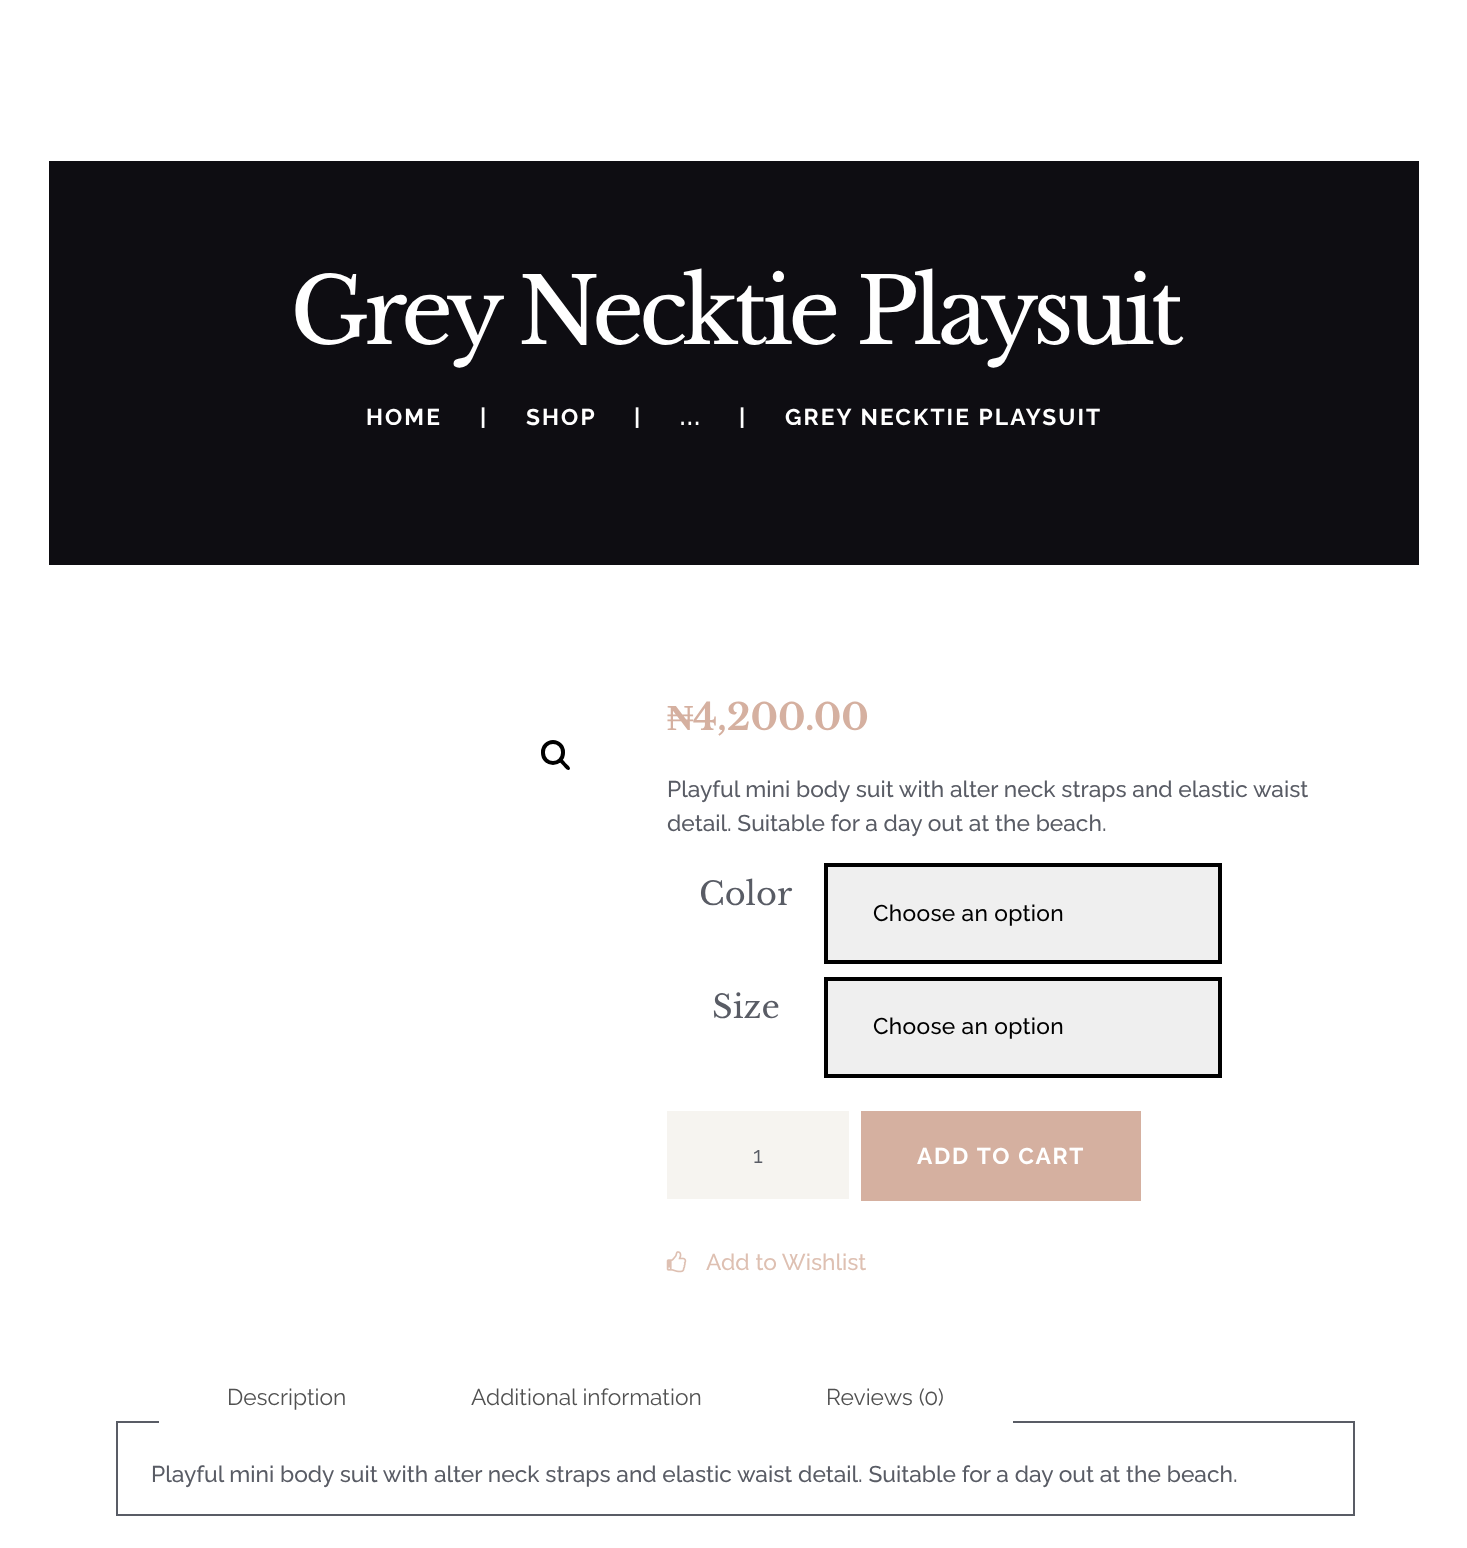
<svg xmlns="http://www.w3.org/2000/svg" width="1467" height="1548">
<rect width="100%" height="100%" fill="#fff"/>
<rect x="49" y="161" width="1370" height="404" fill="#0e0d12"/>
<text x="290" y="344" style="font-family:Libre Baskerville;font-size:91px;letter-spacing:-5.25px;fill:#fff">Grey Necktie Playsuit</text>
<text x="366" y="425" style="font-family:Raleway;font-size:22.75px;font-weight:bold;letter-spacing:2.1px;fill:#fff">HOME</text>
<text x="480" y="425" style="font-family:Raleway;font-size:22.75px;font-weight:bold;letter-spacing:2.1px;fill:#fff">|</text>
<text x="526" y="425" style="font-family:Raleway;font-size:22.75px;font-weight:bold;letter-spacing:2.1px;fill:#fff">SHOP</text>
<text x="634" y="425" style="font-family:Raleway;font-size:22.75px;font-weight:bold;letter-spacing:2.1px;fill:#fff">|</text>
<text x="680" y="425" style="font-family:Raleway;font-size:22.75px;font-weight:bold;letter-spacing:2.1px;fill:#fff">...</text>
<text x="739" y="425" style="font-family:Raleway;font-size:22.75px;font-weight:bold;letter-spacing:2.1px;fill:#fff">|</text>
<text x="785" y="425" style="font-family:Raleway;font-size:22.75px;font-weight:bold;letter-spacing:2.1px;fill:#fff">GREY NECKTIE PLAYSUIT</text>
<rect x="543" y="742" width="20" height="21" rx="10" fill="none" stroke="#000" stroke-width="4"/>
<path d="M560 759.5c1.5-2 5 2.5 6 4c1 1 5.5 4 3.5 6c-2 2-5-2.5-6-3.5c-1-1.5-5.5-4.5-3.5-6.5z" fill="#000"/>
<text x="667" y="730" style="font-family:Liberation Serif;font-size:36.5px;font-weight:bold;fill:#d5b0a0">₦</text>
<text x="693" y="730" style="font-family:Libre Baskerville;font-size:36.5px;font-weight:bold;fill:#d5b0a0">4,200.00</text>
<text x="667" y="797" style="font-family:Raleway;font-size:22.75px;font-weight:500;fill:#595c65">Playful mini body suit with alter neck straps and elastic waist</text>
<text x="667" y="831" style="font-family:Raleway;font-size:22.75px;font-weight:500;fill:#595c65">detail. Suitable for a day out at the beach.</text>
<text x="699" y="905" style="font-family:Libre Baskerville;font-size:32px;fill:#595c65">Color</text>
<rect x="826" y="865" width="394" height="97" fill="#efefef" stroke="#000" stroke-width="4"/>
<text x="873" y="921" style="font-family:Raleway;font-size:22.75px;font-weight:500;letter-spacing:0.3px;fill:#000">Choose an option</text>
<text x="712" y="1018" style="font-family:Libre Baskerville;font-size:32px;fill:#595c65">Size</text>
<rect x="826" y="979" width="394" height="97" fill="#efefef" stroke="#000" stroke-width="4"/>
<text x="873" y="1034" style="font-family:Raleway;font-size:22.75px;font-weight:500;letter-spacing:0.3px;fill:#000">Choose an option</text>
<rect x="667" y="1111" width="182" height="88" fill="#f6f4f0"/>
<text x="753" y="1163" style="font-family:Raleway;font-size:22.75px;letter-spacing:0.3px;fill:#595c65">1</text>
<rect x="861" y="1111" width="280" height="90" fill="#d5b0a0"/>
<text x="917" y="1164" style="font-family:Raleway;font-size:22.75px;font-weight:bold;letter-spacing:1.75px;fill:#fff">ADD TO CART</text>
<image x="666" y="1251" width="21" height="22" href="media/1.png"/>
<text x="706" y="1270" style="font-family:Raleway;font-size:22.75px;font-weight:500;fill:#dec0b2">Add to Wishlist</text>
<rect x="117" y="1422" width="1237" height="93" fill="none" stroke="#595c65" stroke-width="2"/>
<rect x="159" y="1421" width="244" height="2" fill="#fff"/>
<text x="227" y="1405" style="font-family:Raleway;font-size:22.75px;fill:#515151">Description</text>
<path d="M410 1370h353c4 0 7 3 7 7v46h-367v-46c0-4 3-7 7-7z" fill="#fff"/>
<text x="471" y="1405" style="font-family:Raleway;font-size:22.75px;fill:#515151">Additional information</text>
<path d="M765 1370h241c4 0 7 3 7 7v46h-255v-46c0-4 3-7 7-7z" fill="#fff"/>
<text x="826" y="1405" style="font-family:Raleway;font-size:22.75px;fill:#515151">Reviews (0)</text>
<text x="151" y="1482" style="font-family:Raleway;font-size:22.75px;font-weight:500;fill:#595c65">Playful mini body suit with alter neck straps and elastic waist detail. Suitable for a day out at the beach.</text>
</svg>
